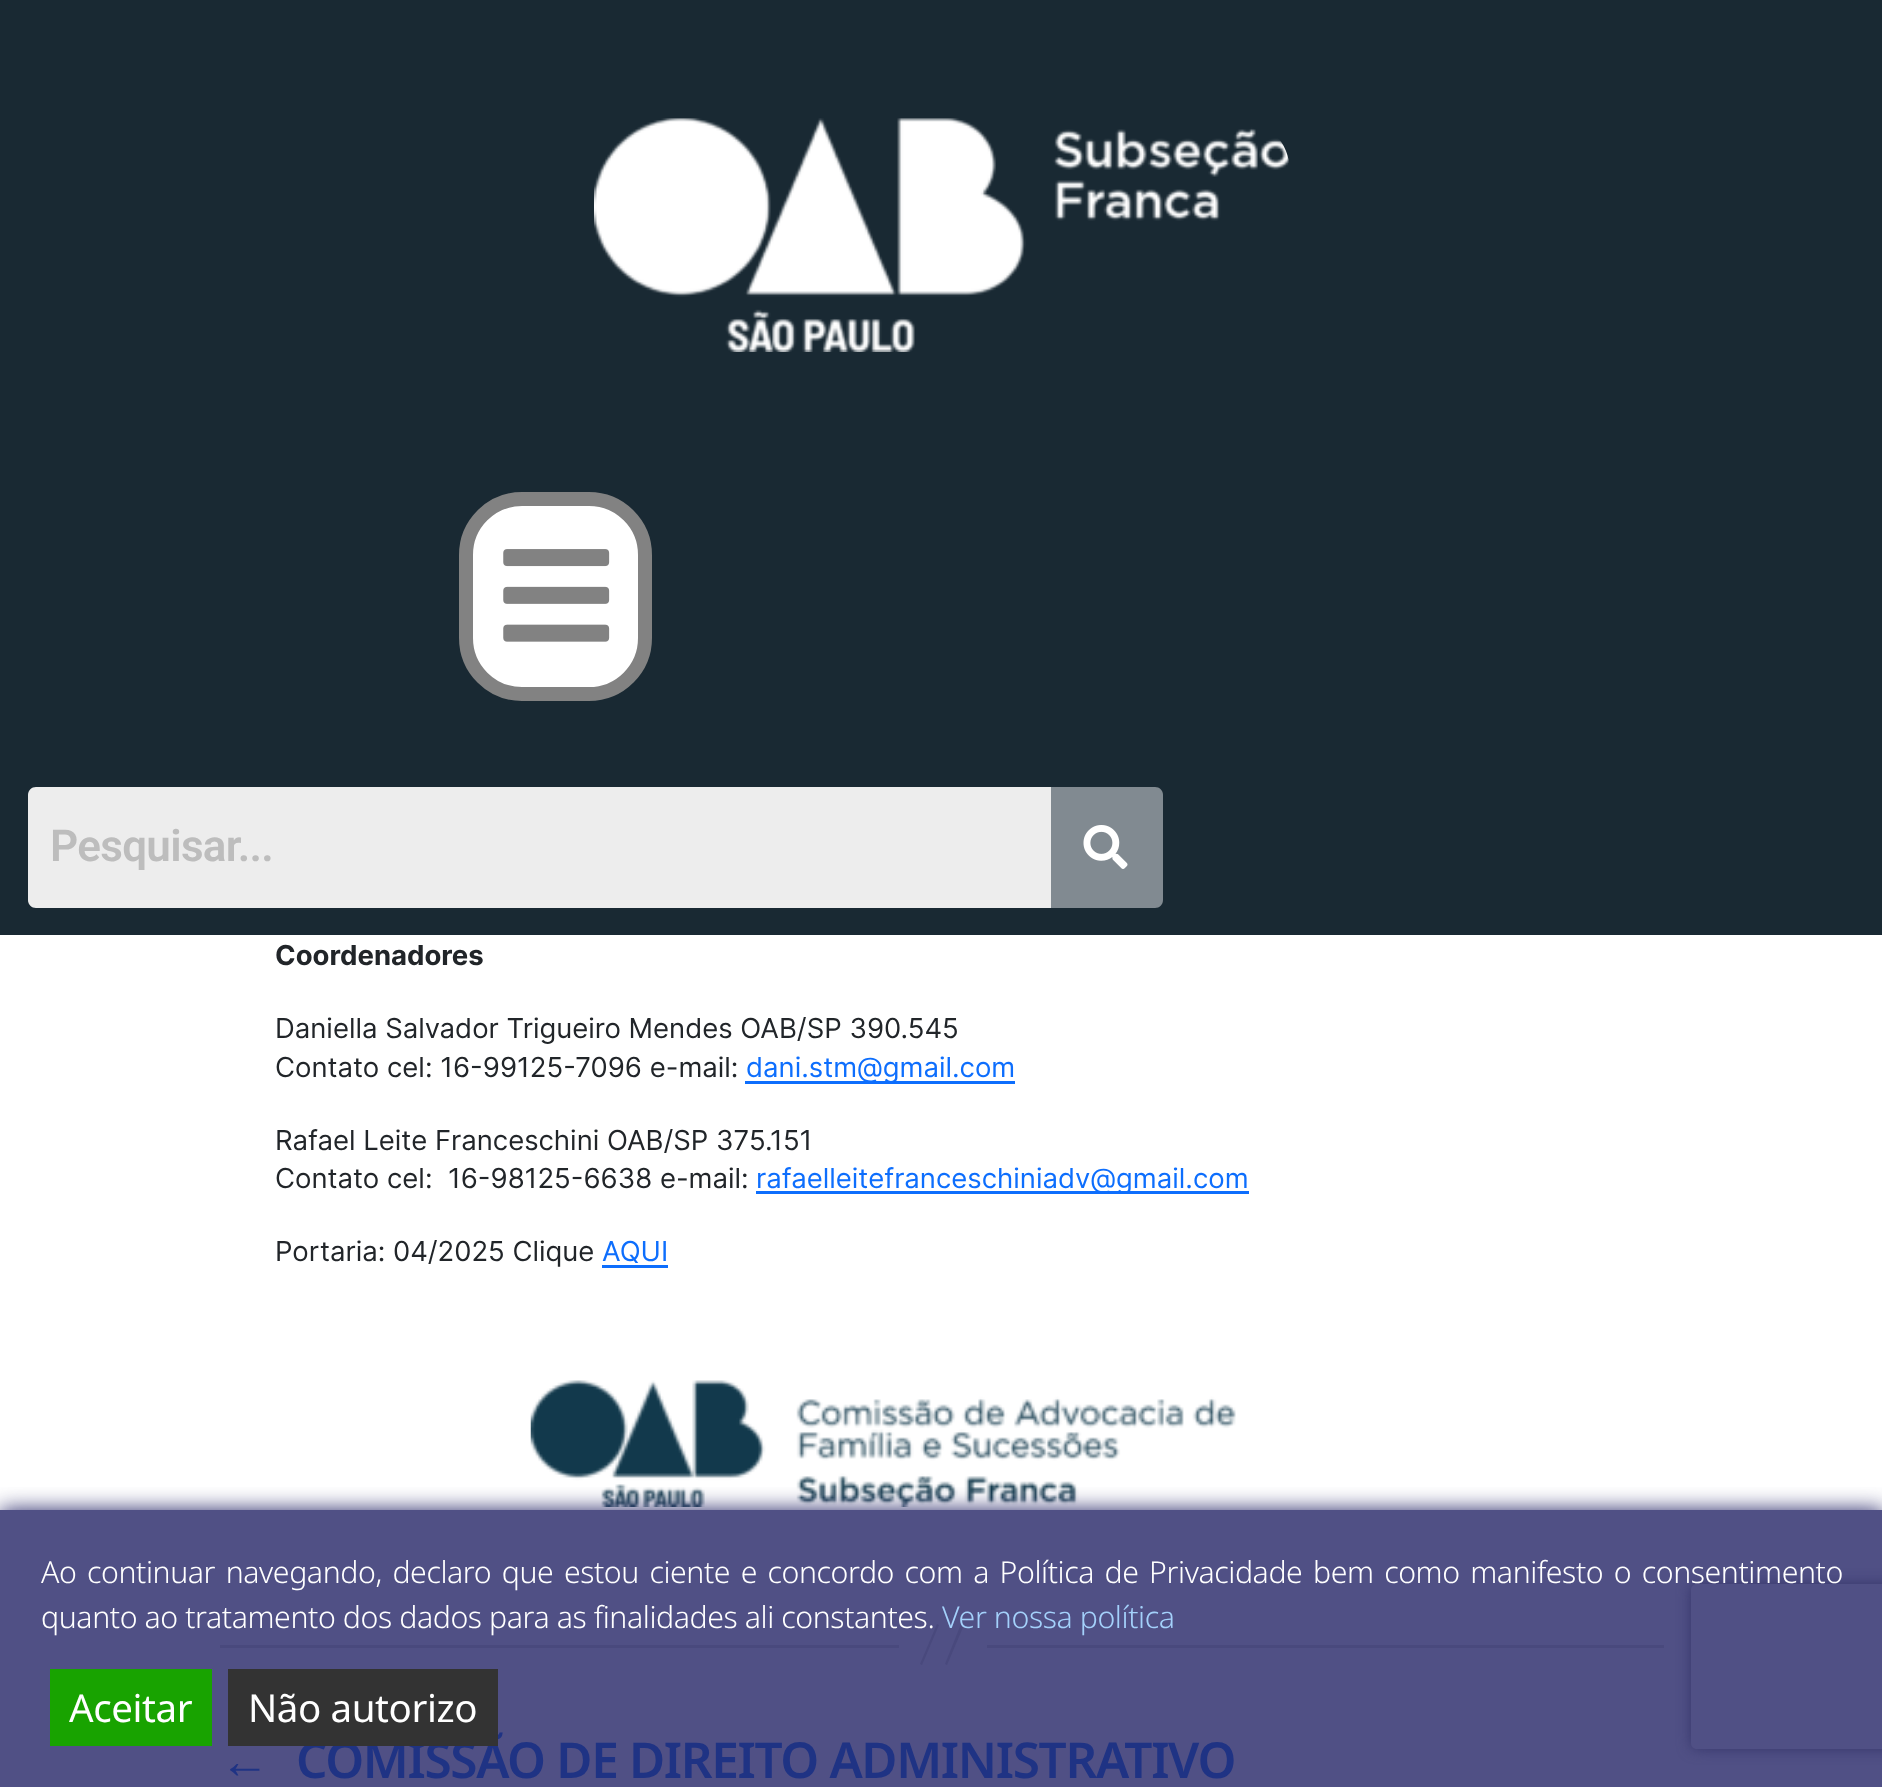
<svg xmlns="http://www.w3.org/2000/svg" width="1882" height="1787">
<defs>
<clipPath id="clip1"><rect x="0" y="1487" width="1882" height="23"/></clipPath>
<clipPath id="clip2"><path d="M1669 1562h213v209h-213zm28 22h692c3.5 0 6 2.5 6 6v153c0 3.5-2.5 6-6 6h-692c-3.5 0-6-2.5-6-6v-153c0-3.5 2.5-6 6-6z" clip-rule="evenodd"/></clipPath>
</defs>
<rect width="100%" height="100%" fill="#fff"/>
<rect y="1510" width="1882" height="277" fill="#505085"/>
<rect width="1882" height="935" fill="#192933"/>
<image x="594" y="118" width="695" height="234" href="media/1.png"/>
<rect x="466" y="499" width="179" height="195" rx="56" fill="#fff" stroke="#828282" stroke-width="14"/>
<image x="503" y="549" width="107" height="93" href="media/2.png"/>
<path d="M36 787h1015v121h-1015c-4.5 0-8-3.5-8-8v-105c0-4.5 3.5-8 8-8z" fill="#ededed"/>
<text x="50" y="861" style="font-family:Roboto;font-size:44px;font-weight:600;letter-spacing:-0.7px;fill:#bdbdbd">Pesquisar...</text>
<path d="M1051 787h104c4.5 0 8 3.5 8 8v105c0 4.5-3.5 8-8 8h-104z" fill="#818a91"/>
<image x="1083" y="825" width="45" height="44" href="media/3.png"/>
<text x="275" y="965" style="font-family:Inter;font-size:27.5px;font-weight:bold;fill:#212529">Coordenadores</text>
<text x="275" y="1038" style="font-family:Inter;font-size:27.5px;fill:#212529">Daniella Salvador Trigueiro Mendes OAB/SP 390.545</text>
<text x="275" y="1077" style="font-family:Inter;font-size:27.5px;fill:#212529">Contato cel: 16-99125-7096 e-mail:</text>
<rect x="745" y="1081" width="270" height="3" fill="#0d6efd"/>
<text x="746" y="1077" style="font-family:Inter;font-size:27.5px;fill:#0d6efd">dani.stm@gmail.com</text>
<text x="275" y="1150" style="font-family:Inter;font-size:27.5px;fill:#212529">Rafael Leite Franceschini OAB/SP 375.151</text>
<text x="275" y="1188" style="font-family:Inter;font-size:27.5px;fill:#212529" xml:space="preserve">Contato cel:  16-98125-6638 e-mail:</text>
<rect x="756" y="1191" width="493" height="3" fill="#0d6efd"/>
<text x="756" y="1188" style="font-family:Inter;font-size:27.5px;fill:#0d6efd">rafaelleitefranceschiniadv@gmail.com</text>
<text x="275" y="1261" style="font-family:Inter;font-size:27.5px;fill:#212529">Portaria: 04/2025 Clique</text>
<text x="602" y="1261" style="font-family:Inter;font-size:27.5px;fill:#0d6efd">AQUI</text>
<rect x="602" y="1265" width="66" height="3" fill="#0d6efd"/>
<image x="530" y="1380" width="706" height="127" href="media/4.png"/>
<rect x="987" y="1645" width="677" height="3" fill="#49497d"/>
<rect x="220" y="1645" width="679" height="3" fill="#49497d"/>
<path d="M937 1624l2 1l-17 40l-2-1zm24 0l3 1l-17 40l-2-1z" fill="#49497d"/>
<text x="220" y="1778" style="font-family:Liberation Sans;font-size:49.5px;font-weight:bold;letter-spacing:-1.35px;fill:#1f3384">←</text>
<text x="296" y="1778" style="font-family:Noto Sans;font-size:49.5px;font-weight:600;letter-spacing:-1.35px;fill:#1f3384">COMISSÃO DE DIREITO ADMINISTRATIVO</text>
<g clip-path="url(#clip1)">
<rect y="1510" width="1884" height="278" fill="#242466" filter="blur(11px)"/>
</g>
<g clip-path="url(#clip2)">
<rect x="1691" y="1584" width="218" height="165" rx="6" fill="#36366b" filter="blur(7px)"/>
</g>
<text x="41" y="1583" word-spacing="3.1" style="font-family:Noto Sans;font-size:30.25px;font-weight:300;letter-spacing:-0.41px;fill:#fff">Ao continuar navegando, declaro que estou ciente e concordo com a Política de Privacidade bem como manifesto o consentimento</text>
<text x="41" y="1628" style="font-family:Noto Sans;font-size:30.25px;font-weight:300;letter-spacing:-0.41px;fill:#fff">quanto ao tratamento dos dados para as finalidades ali constantes.</text>
<text x="942" y="1628" style="font-family:Noto Sans;font-size:30.25px;font-weight:300;letter-spacing:-0.41px;fill:#a4d1fb">Ver nossa política</text>
<rect x="50" y="1669" width="162" height="77" fill="#18a300"/>
<text x="69" y="1722" style="font-family:Noto Sans;font-size:38.5px;letter-spacing:-0.41px;fill:#fff">Aceitar</text>
<rect x="228" y="1669" width="270" height="77" fill="#333"/>
<text x="248" y="1722" style="font-family:Noto Sans;font-size:38.5px;letter-spacing:-0.41px;fill:#fff">Não autorizo</text>
</svg>
